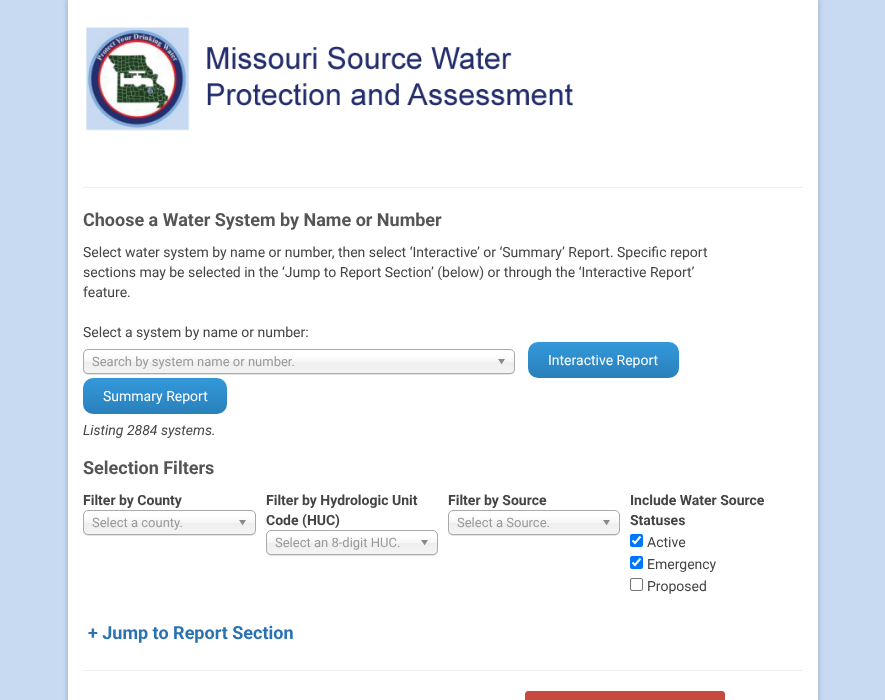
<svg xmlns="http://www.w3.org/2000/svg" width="885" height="700">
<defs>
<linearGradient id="g1" gradientUnits="userSpaceOnUse" x1="604" y1="342" x2="604" y2="378"><stop offset="0" stop-color="#3498db"/><stop offset="1" stop-color="#2980b9"/></linearGradient>
<linearGradient id="g2" gradientUnits="userSpaceOnUse" x1="155" y1="378" x2="155" y2="414"><stop offset="0" stop-color="#3498db"/><stop offset="1" stop-color="#2980b9"/></linearGradient>
<linearGradient id="g3" gradientUnits="userSpaceOnUse" x1="299" y1="350" x2="299" y2="373"><stop offset="0.2" stop-color="#fff"/><stop offset="0.5" stop-color="#f6f6f6"/><stop offset="0.52" stop-color="#eee"/><stop offset="1" stop-color="#f4f4f4"/></linearGradient>
<linearGradient id="g4" gradientUnits="userSpaceOnUse" x1="170" y1="511" x2="170" y2="534"><stop offset="0.2" stop-color="#fff"/><stop offset="0.5" stop-color="#f6f6f6"/><stop offset="0.52" stop-color="#eee"/><stop offset="1" stop-color="#f4f4f4"/></linearGradient>
<linearGradient id="g5" gradientUnits="userSpaceOnUse" x1="352" y1="531" x2="352" y2="554"><stop offset="0.2" stop-color="#fff"/><stop offset="0.5" stop-color="#f6f6f6"/><stop offset="0.52" stop-color="#eee"/><stop offset="1" stop-color="#f4f4f4"/></linearGradient>
<linearGradient id="g6" gradientUnits="userSpaceOnUse" x1="534" y1="511" x2="534" y2="534"><stop offset="0.2" stop-color="#fff"/><stop offset="0.5" stop-color="#f6f6f6"/><stop offset="0.52" stop-color="#eee"/><stop offset="1" stop-color="#f4f4f4"/></linearGradient>
</defs>
<rect width="100%" height="100%" fill="#c7daf1"/>
<rect x="67" y="-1" width="752" height="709" fill="#00000029" filter="blur(2.5px)"/>
<rect x="68" width="750" height="700" fill="#fff"/>
<image x="86" y="27" width="487" height="104" href="media/1.png"/>
<rect x="83" y="187" width="720" height="1" fill="#eee"/>
<text x="83" y="226" style="font-family:Roboto;font-size:18px;font-weight:bold;fill:#555">Choose a Water System by Name or Number</text>
<text x="83" y="257" style="font-family:Roboto;font-size:14px;fill:#444">Select water system by name or number, then select ‘Interactive’ or ‘Summary’ Report. Specific report</text>
<text x="83" y="277" style="font-family:Roboto;font-size:14px;fill:#444">sections may be selected in the ‘Jump to Report Section’ (below) or through the ‘Interactive Report’</text>
<text x="83" y="297" style="font-family:Roboto;font-size:14px;fill:#444">feature.</text>
<text x="83" y="337" style="font-family:Roboto;font-size:14px;fill:#444">Select a system by name or number:</text>
<rect x="528" y="342" width="151" height="36" rx="10" fill="url(#g1)"/>
<text x="548" y="365" style="font-family:Roboto;font-size:14px;fill:#fff">Interactive Report</text>
<rect x="83" y="378" width="144" height="36" rx="10" fill="url(#g2)"/>
<text x="103" y="401" style="font-family:Roboto;font-size:14px;fill:#fff">Summary Report</text>
<rect x="83" y="350" width="432" height="25" rx="5" fill="#0000001a" filter="blur(0.5px)"/>
<rect x="84" y="350" width="430" height="23" rx="4" fill="url(#g3)"/>
<rect x="83.5" y="349.5" width="431" height="24" rx="4.5" fill="none" stroke="#aaa"/>
<text x="92" y="366" style="font-family:Roboto;font-size:13px;fill:#999">Search by system name or number.</text>
<image x="498" y="359" width="7" height="6" href="media/2.png"/>
<text x="83" y="435" style="font-family:Roboto;font-size:14px;font-style:italic;fill:#444">Listing 2884 systems.</text>
<text x="83" y="474" style="font-family:Roboto;font-size:18px;font-weight:bold;fill:#555">Selection Filters</text>
<text x="83" y="505" style="font-family:Roboto;font-size:14px;font-weight:bold;fill:#444">Filter by County</text>
<rect x="83" y="511" width="173" height="25" rx="5" fill="#0000001a" filter="blur(0.5px)"/>
<rect x="84" y="511" width="171" height="23" rx="4" fill="url(#g4)"/>
<rect x="83.5" y="510.5" width="172" height="24" rx="4.5" fill="none" stroke="#aaa"/>
<text x="92" y="527" style="font-family:Roboto;font-size:13px;fill:#999">Select a county.</text>
<image x="239" y="520" width="7" height="6" href="media/2.png"/>
<text x="266" y="505" style="font-family:Roboto;font-size:14px;font-weight:bold;fill:#444">Filter by Hydrologic Unit</text>
<text x="266" y="525" style="font-family:Roboto;font-size:14px;font-weight:bold;fill:#444">Code (HUC)</text>
<rect x="266" y="531" width="172" height="25" rx="5" fill="#0000001a" filter="blur(0.5px)"/>
<rect x="267" y="531" width="170" height="23" rx="4" fill="url(#g5)"/>
<rect x="266.5" y="530.5" width="171" height="24" rx="4.5" fill="none" stroke="#aaa"/>
<text x="275" y="547" style="font-family:Roboto;font-size:13px;fill:#999">Select an 8-digit HUC.</text>
<image x="421" y="540" width="7" height="6" href="media/2.png"/>
<text x="448" y="505" style="font-family:Roboto;font-size:14px;font-weight:bold;fill:#444">Filter by Source</text>
<rect x="448" y="511" width="172" height="25" rx="5" fill="#0000001a" filter="blur(0.5px)"/>
<rect x="449" y="511" width="170" height="23" rx="4" fill="url(#g6)"/>
<rect x="448.5" y="510.5" width="171" height="24" rx="4.5" fill="none" stroke="#aaa"/>
<text x="457" y="527" style="font-family:Roboto;font-size:13px;fill:#999">Select a Source.</text>
<image x="603" y="520" width="7" height="6" href="media/2.png"/>
<text x="630" y="505" style="font-family:Roboto;font-size:14px;font-weight:bold;fill:#444">Include Water Source</text>
<text x="630" y="525" style="font-family:Roboto;font-size:14px;font-weight:bold;fill:#444">Statuses</text>
<rect x="630" y="534" width="13" height="13" rx="2" fill="#0075ff"/>
<path d="M632.5 540.5l2.5 2.5l5.5-6.5" fill="none" stroke="#fff" stroke-width="2.1"/>
<text x="647" y="547" style="font-family:Roboto;font-size:14px;fill:#444">Active</text>
<rect x="630" y="556" width="13" height="13" rx="2" fill="#0075ff"/>
<path d="M632.5 562.5l2.5 2.5l5.5-6.5" fill="none" stroke="#fff" stroke-width="2.1"/>
<text x="647" y="569" style="font-family:Roboto;font-size:14px;fill:#444">Emergency</text>
<rect x="630.5" y="578.5" width="12" height="12" rx="1.5" fill="none" stroke="#767676"/>
<text x="647" y="591" style="font-family:Roboto;font-size:14px;fill:#444">Proposed</text>
<text x="88" y="639" style="font-family:Roboto;font-size:18px;font-weight:bold;fill:#2a73b2">+ Jump to Report Section</text>
<rect x="83" y="670" width="720" height="1" fill="#eee"/>
<rect x="525.5" y="691.5" width="199" height="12" rx="2.5" fill="#c64a3f" stroke="#c64a3f"/>
</svg>
